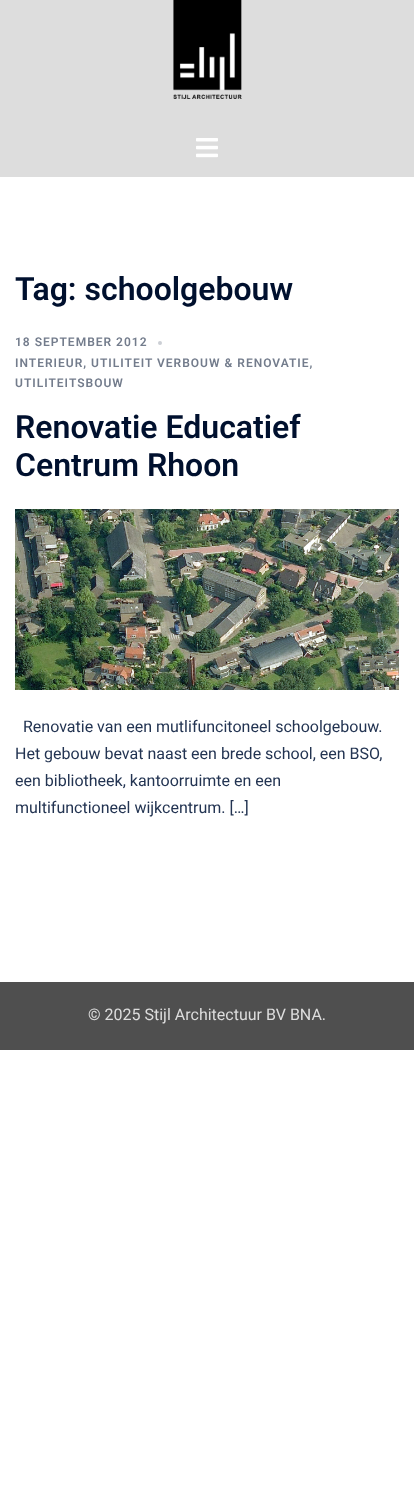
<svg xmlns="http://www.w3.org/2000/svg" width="414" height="1500">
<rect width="100%" height="100%" fill="#fff"/>
<rect width="414" height="177" fill="#ddd"/>
<image x="173" y="0" width="69" height="99" href="media/1.png"/>
<image x="196" y="138" width="22" height="20" href="media/2.png"/>
<text x="15" y="300" style="font-family:Roboto;font-size:32px;font-weight:600;fill:#00102e">Tag: schoolgebouw</text>
<text x="15" y="346" style="font-family:Roboto;font-size:12px;font-weight:600;letter-spacing:1px;fill:#737c8c">18 SEPTEMBER 2012</text>
<circle cx="160" cy="343" r="2" fill="#cccfd5"/>
<text x="15" y="367" style="font-family:Roboto;font-size:12px;font-weight:600;letter-spacing:1px;fill:#737c8c">INTERIEUR, UTILITEIT VERBOUW &amp; RENOVATIE,</text>
<text x="15" y="387" style="font-family:Roboto;font-size:12px;font-weight:600;letter-spacing:1px;fill:#737c8c">UTILITEITSBOUW</text>
<text x="15" y="438" style="font-family:Roboto;font-size:32px;font-weight:600;fill:#00102e">Renovatie Educatief</text>
<text x="15" y="476" style="font-family:Roboto;font-size:32px;font-weight:600;fill:#00102e">Centrum Rhoon</text>
<image x="15" y="509" width="384" height="181" href="media/3.png"/>
<text x="23" y="732" style="font-family:Roboto;font-size:16px;fill:#233452">Renovatie van een mutlifuncitoneel schoolgebouw.</text>
<text x="15" y="759" style="font-family:Roboto;font-size:16px;fill:#233452">Het gebouw bevat naast een brede school, een BSO,</text>
<text x="15" y="786" style="font-family:Roboto;font-size:16px;fill:#233452">een bibliotheek, kantoorruimte en een</text>
<text x="15" y="813" style="font-family:Roboto;font-size:16px;fill:#233452">multifunctioneel wijkcentrum. […]</text>
<rect y="982" width="414" height="68" fill="#4f4f4f"/>
<text x="88" y="1020" style="font-family:Roboto;font-size:16px;fill:#ddd">© 2025 Stijl Architectuur BV BNA.</text>
</svg>
